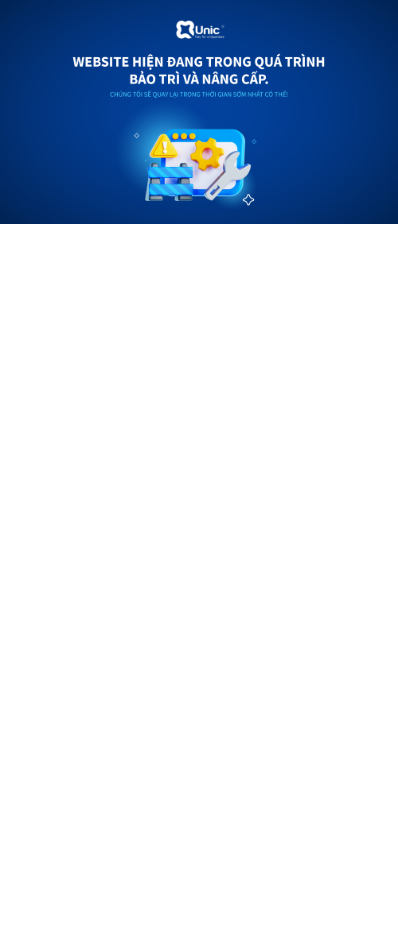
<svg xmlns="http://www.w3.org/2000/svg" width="398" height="952">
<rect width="100%" height="100%" fill="#fff"/>
<image x="0" y="0" width="398" height="224" href="media/1.png"/>
</svg>
